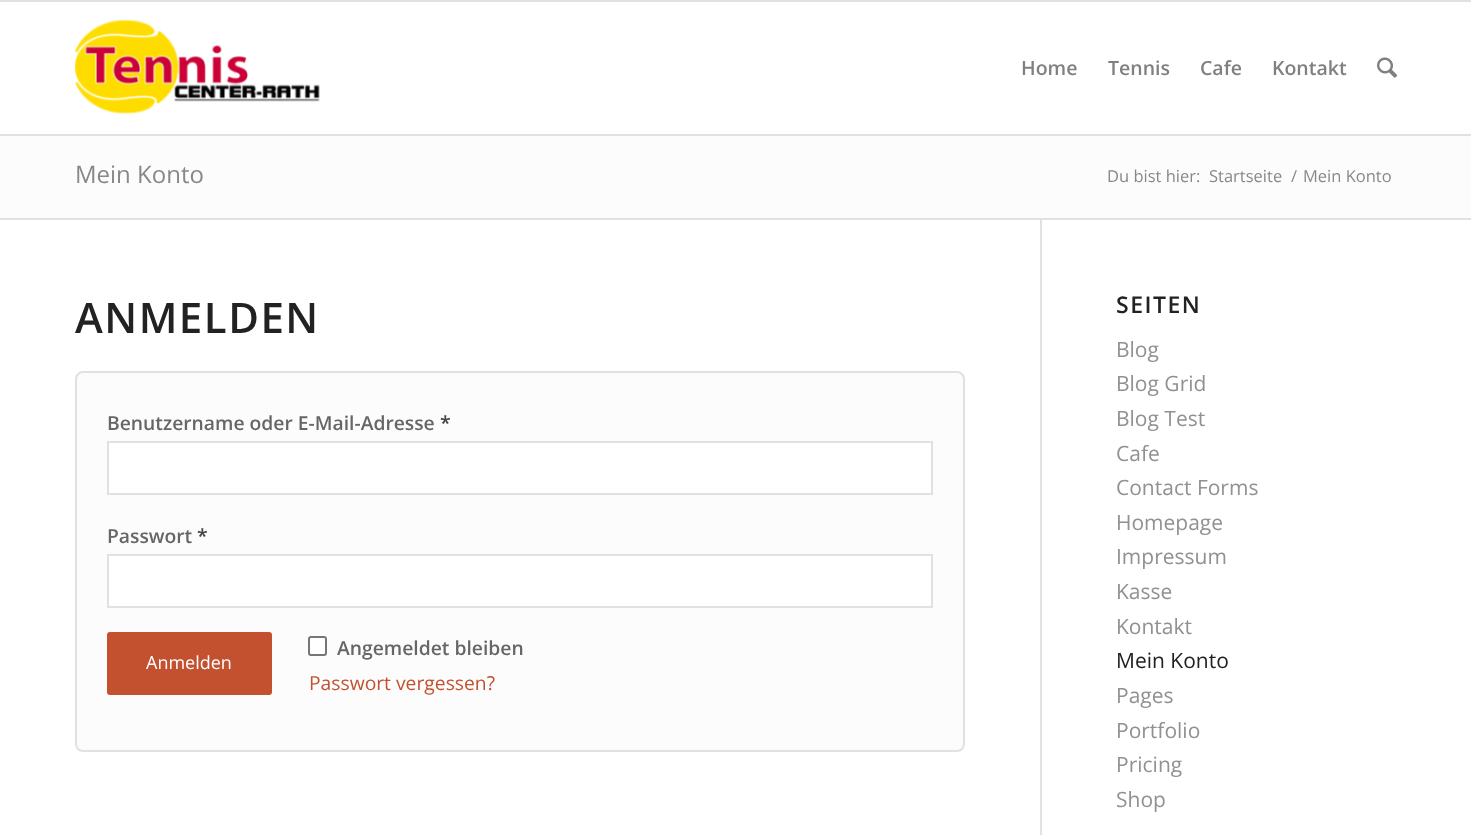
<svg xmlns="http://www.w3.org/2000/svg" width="1471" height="835">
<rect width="100%" height="100%" fill="#fff"/>
<rect width="1471" height="2" fill="#e1e1e1"/>
<rect y="134" width="1471" height="2" fill="#e1e1e1"/>
<image x="75" y="19" width="245" height="96" href="media/1.png"/>
<text x="1021" y="75" style="font-family:Open Sans;font-size:19.5px;font-weight:600;fill:#808080">Home</text>
<text x="1108" y="75" style="font-family:Open Sans;font-size:19.5px;font-weight:600;fill:#808080">Tennis</text>
<text x="1200" y="75" style="font-family:Open Sans;font-size:19.5px;font-weight:600;fill:#808080">Cafe</text>
<text x="1272" y="75" style="font-family:Open Sans;font-size:19.5px;font-weight:600;fill:#808080">Kontakt</text>
<image x="1377" y="57" width="21" height="21" href="media/2.png"/>
<rect y="136" width="1471" height="82" fill="#fcfcfc"/>
<text x="75" y="183" style="font-family:Open Sans;font-size:24px;fill:#888">Mein Konto</text>
<text x="1107" y="182" style="font-family:Open Sans;font-size:16.5px;fill:#888">Du bist hier:</text>
<text x="1209" y="182" style="font-family:Open Sans;font-size:16.5px;fill:#888">Startseite</text>
<text x="1291" y="182" style="font-family:Open Sans;font-size:16.5px;fill:#888">/</text>
<text x="1303" y="182" style="font-family:Open Sans;font-size:16.5px;fill:#888">Mein Konto</text>
<rect y="218" width="1471" height="2" fill="#e1e1e1"/>
<rect x="1040" y="219" width="2" height="616" fill="#e1e1e1"/>
<text x="75" y="333" style="font-family:Open Sans;font-size:42px;font-weight:600;letter-spacing:1.5px;fill:#222">ANMELDEN</text>
<rect x="76" y="372" width="888" height="379" rx="7" fill="#fcfcfc" stroke="#e1e1e1" stroke-width="2"/>
<text x="107" y="430" style="font-family:Open Sans;font-size:19.3px;font-weight:600;fill:#666">Benutzername oder E-Mail-Adresse</text>
<text x="440" y="430" style="font-family:Open Sans;font-size:19.5px;font-weight:600;fill:#444">*</text>
<rect x="108" y="442" width="824" height="52" fill="#fff" stroke="#e1e1e1" stroke-width="2"/>
<text x="107" y="543" style="font-family:Open Sans;font-size:19.3px;font-weight:600;fill:#666">Passwort</text>
<text x="197" y="543" style="font-family:Open Sans;font-size:19.5px;font-weight:600;fill:#444">*</text>
<rect x="108" y="555" width="824" height="52" fill="#fff" stroke="#e1e1e1" stroke-width="2"/>
<rect x="309" y="637" width="17" height="18" rx="2" fill="#fff" stroke="#767676" stroke-width="2"/>
<text x="337" y="655" style="font-family:Open Sans;font-size:19.3px;font-weight:600;fill:#666">Angemeldet bleiben</text>
<rect x="107" y="632" width="165" height="63" rx="3" fill="#c3512f"/>
<text x="146" y="669" style="font-family:Open Sans;font-size:18px;fill:#fff">Anmelden</text>
<text x="309" y="690" style="font-family:Open Sans;font-size:19.3px;fill:#c3512f">Passwort vergessen?</text>
<text x="1116" y="313" style="font-family:Open Sans;font-size:23px;font-weight:600;letter-spacing:1.5px;fill:#222">SEITEN</text>
<text x="1116" y="357" style="font-family:Open Sans;font-size:21px;fill:#919191">Blog</text>
<text x="1116" y="391" style="font-family:Open Sans;font-size:21px;fill:#919191">Blog Grid</text>
<text x="1116" y="426" style="font-family:Open Sans;font-size:21px;fill:#919191">Blog Test</text>
<text x="1116" y="461" style="font-family:Open Sans;font-size:21px;fill:#919191">Cafe</text>
<text x="1116" y="495" style="font-family:Open Sans;font-size:21px;fill:#919191">Contact Forms</text>
<text x="1116" y="530" style="font-family:Open Sans;font-size:21px;fill:#919191">Homepage</text>
<text x="1116" y="564" style="font-family:Open Sans;font-size:21px;fill:#919191">Impressum</text>
<text x="1116" y="599" style="font-family:Open Sans;font-size:21px;fill:#919191">Kasse</text>
<text x="1116" y="634" style="font-family:Open Sans;font-size:21px;fill:#919191">Kontakt</text>
<text x="1116" y="668" style="font-family:Open Sans;font-size:21px;fill:#222">Mein Konto</text>
<text x="1116" y="703" style="font-family:Open Sans;font-size:21px;fill:#919191">Pages</text>
<text x="1116" y="738" style="font-family:Open Sans;font-size:21px;fill:#919191">Portfolio</text>
<text x="1116" y="772" style="font-family:Open Sans;font-size:21px;fill:#919191">Pricing</text>
<text x="1116" y="807" style="font-family:Open Sans;font-size:21px;fill:#919191">Shop</text>
</svg>
